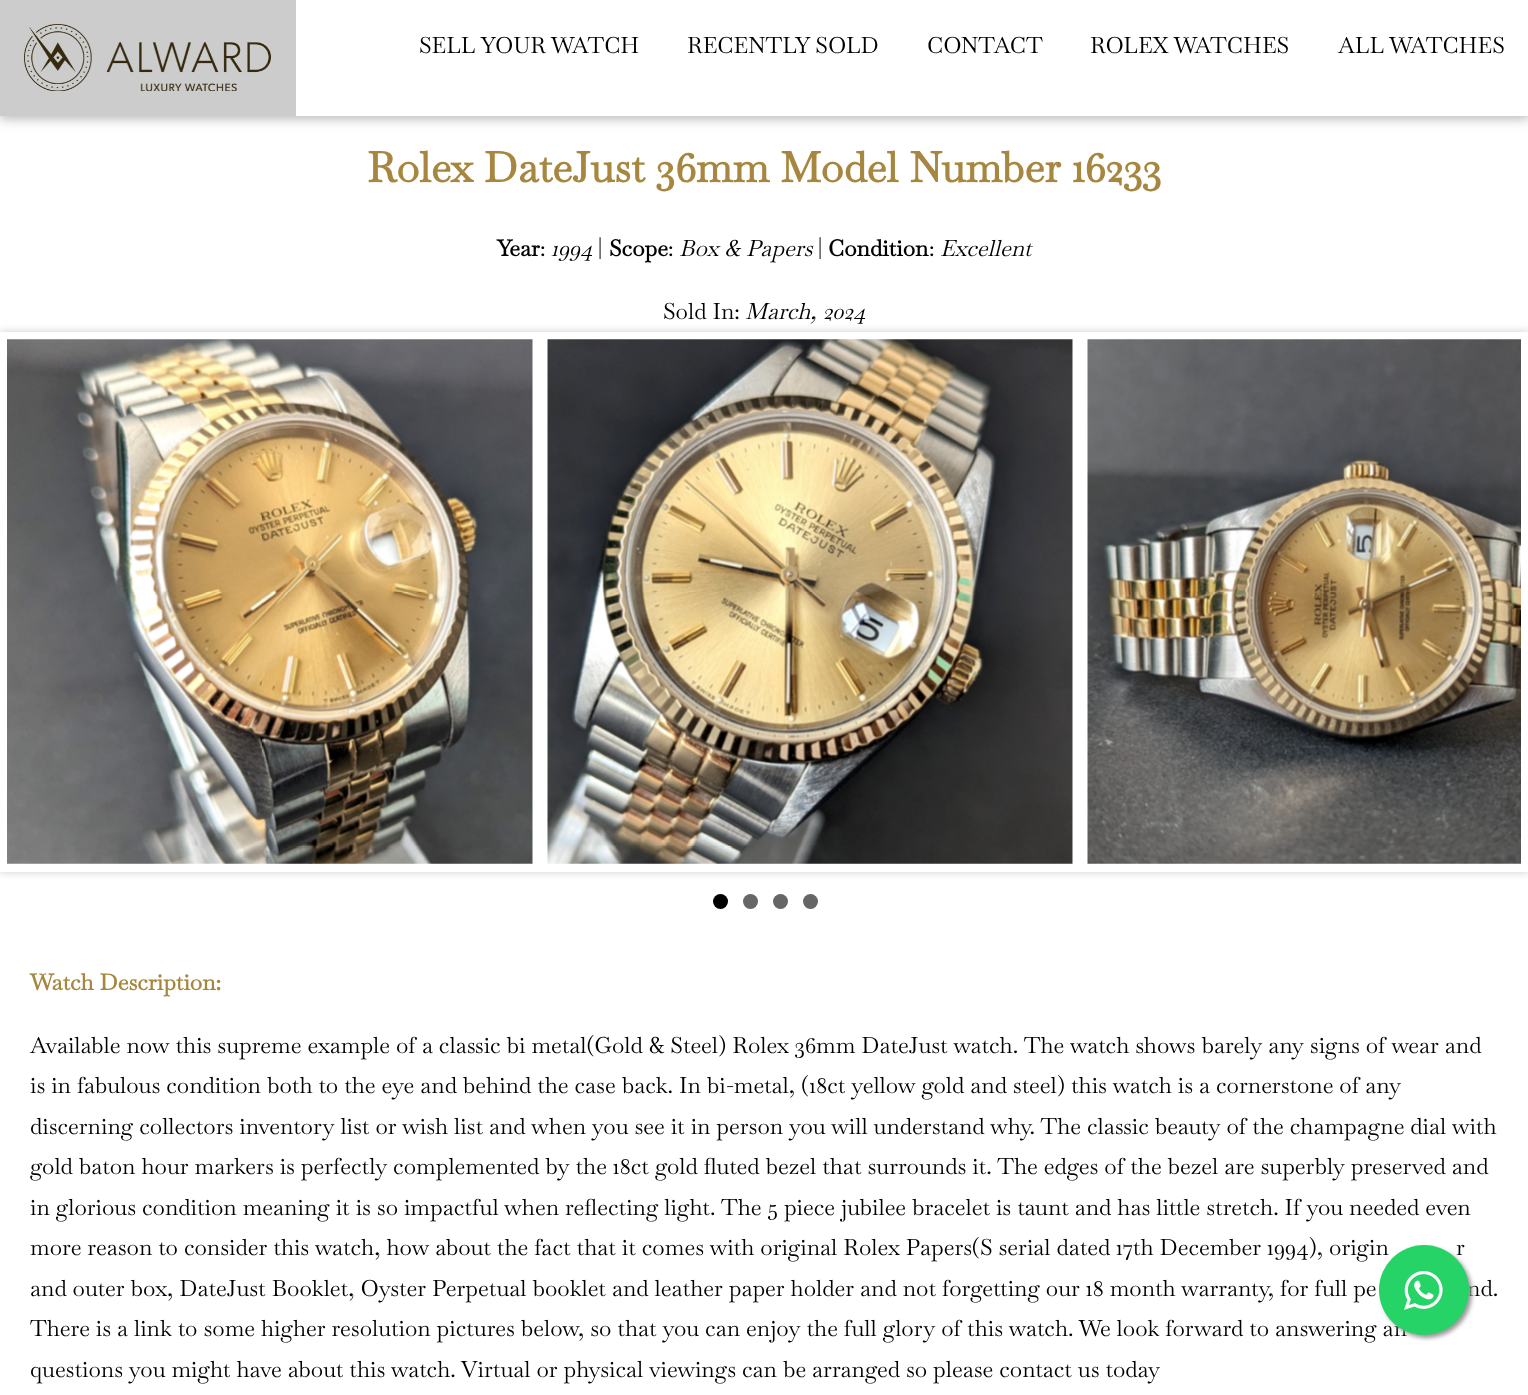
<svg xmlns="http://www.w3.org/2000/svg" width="1528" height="1395">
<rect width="100%" height="100%" fill="#fff"/>
<rect y="3" width="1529" height="116" fill="#0000001f" filter="blur(7.5px)"/>
<rect y="3" width="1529" height="116" fill="#00000029" filter="blur(4px)"/>
<rect x="296" width="1232" height="116" fill="#fff"/>
<rect width="296" height="116" fill="#ccc"/>
<image x="24" y="24" width="247" height="67" href="media/1.png"/>
<text x="419" y="53" style="font-family:Baskervville;font-size:22.5px;fill:#000">SELL YOUR WATCH</text>
<text x="687" y="53" style="font-family:Baskervville;font-size:22.5px;fill:#000">RECENTLY SOLD</text>
<text x="927" y="53" style="font-family:Baskervville;font-size:22.5px;fill:#000">CONTACT</text>
<text x="1090" y="53" style="font-family:Baskervville;font-size:22.5px;fill:#000">ROLEX WATCHES</text>
<text x="1338" y="53" style="font-family:Baskervville;font-size:22.5px;fill:#000">ALL WATCHES</text>
<text x="367" y="182" style="font-family:Baskervville;font-size:42px;font-weight:bold;fill:#a78740">Rolex DateJust 36mm Model Number 16233</text>
<text x="497" y="256" style="font-family:Baskervville;font-size:22.5px;font-weight:bold;fill:#000">Year</text>
<text x="540" y="256" style="font-family:Baskervville;font-size:22.5px;fill:#000">:</text>
<text x="551" y="256" style="font-family:Baskervville;font-size:22.5px;font-style:italic;fill:#000">1994</text>
<text x="598" y="256" style="font-family:Baskervville;font-size:22.5px;fill:#000">|</text>
<text x="609" y="256" style="font-family:Baskervville;font-size:22.5px;font-weight:bold;fill:#000">Scope</text>
<text x="668" y="256" style="font-family:Baskervville;font-size:22.5px;fill:#000">:</text>
<text x="679" y="256" style="font-family:Baskervville;font-size:22.5px;font-style:italic;fill:#000">Box &amp; Papers</text>
<text x="818" y="256" style="font-family:Baskervville;font-size:22.5px;fill:#000">|</text>
<text x="828" y="256" style="font-family:Baskervville;font-size:22.5px;font-weight:bold;fill:#000">Condition</text>
<text x="929" y="256" style="font-family:Baskervville;font-size:22.5px;fill:#000">:</text>
<text x="940" y="256" style="font-family:Baskervville;font-size:22.5px;font-style:italic;fill:#000">Excellent</text>
<text x="663" y="319" style="font-family:Baskervville;font-size:22.5px;fill:#000">Sold In:</text>
<text x="745" y="319" style="font-family:Baskervville;font-size:22.5px;font-style:italic;fill:#000">March, 2024</text>
<rect y="332" width="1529" height="540" fill="#ccc" filter="blur(4px)"/>
<rect y="332" width="1528" height="540" fill="#fff"/>
<image x="7" y="339" width="526" height="525" href="media/2.png"/>
<image x="547" y="339" width="526" height="525" href="media/3.png"/>
<image x="1087" y="339" width="434" height="525" href="media/4.png"/>
<circle cx="720.5" cy="901.5" r="7.5" fill="#000"/>
<circle cx="750.5" cy="901.5" r="7.5" fill="#666"/>
<circle cx="780.5" cy="901.5" r="7.5" fill="#666"/>
<circle cx="810.5" cy="901.5" r="7.5" fill="#666"/>
<text x="30" y="990" style="font-family:Baskervville;font-size:22.5px;font-weight:bold;fill:#a78740">Watch Description:</text>
<text x="30" y="1053" style="font-family:Baskervville;font-size:22.5px;fill:#000">Available now this supreme example of a classic bi metal(Gold &amp; Steel) Rolex 36mm DateJust watch. The watch shows barely any signs of wear and</text>
<text x="30" y="1093" style="font-family:Baskervville;font-size:22.5px;fill:#000">is in fabulous condition both to the eye and behind the case back. In bi-metal, (18ct yellow gold and steel) this watch is a cornerstone of any</text>
<text x="30" y="1134" style="font-family:Baskervville;font-size:22.5px;fill:#000">discerning collectors inventory list or wish list and when you see it in person you will understand why. The classic beauty of the champagne dial with</text>
<text x="30" y="1174" style="font-family:Baskervville;font-size:22.5px;fill:#000">gold baton hour markers is perfectly complemented by the 18ct gold fluted bezel that surrounds it. The edges of the bezel are superbly preserved and</text>
<text x="30" y="1215" style="font-family:Baskervville;font-size:22.5px;fill:#000">in glorious condition meaning it is so impactful when reflecting light. The 5 piece jubilee bracelet is taunt and has little stretch. If you needed even</text>
<text x="30" y="1255" style="font-family:Baskervville;font-size:22.5px;fill:#000">more reason to consider this watch, how about the fact that it comes with original Rolex Papers(S serial dated 17th December 1994), origin</text>
<text x="1456" y="1255" style="font-family:Baskervville;font-size:22.5px;fill:#000">r</text>
<text x="30" y="1296" style="font-family:Baskervville;font-size:22.5px;fill:#000">and outer box, DateJust Booklet, Oyster Perpetual booklet and leather paper holder and not forgetting our 18 month warranty, for full pe</text>
<text x="1467" y="1296" style="font-family:Baskervville;font-size:22.5px;fill:#000">nd.</text>
<text x="30" y="1336" style="font-family:Baskervville;font-size:22.5px;fill:#000">There is a link to some higher resolution pictures below, so that you can enjoy the full glory of this watch. We look forward to answering an</text>
<text x="30" y="1377" style="font-family:Baskervville;font-size:22.5px;fill:#000">questions you might have about this watch. Virtual or physical viewings can be arranged so please contact us today</text>
<rect x="1382" y="1248" width="90" height="90" rx="45" fill="#999" filter="blur(2px)"/>
<circle cx="1424" cy="1290" r="45" fill="#25d366"/>
<image x="1404" y="1271" width="39" height="39" href="media/5.png"/>
</svg>
